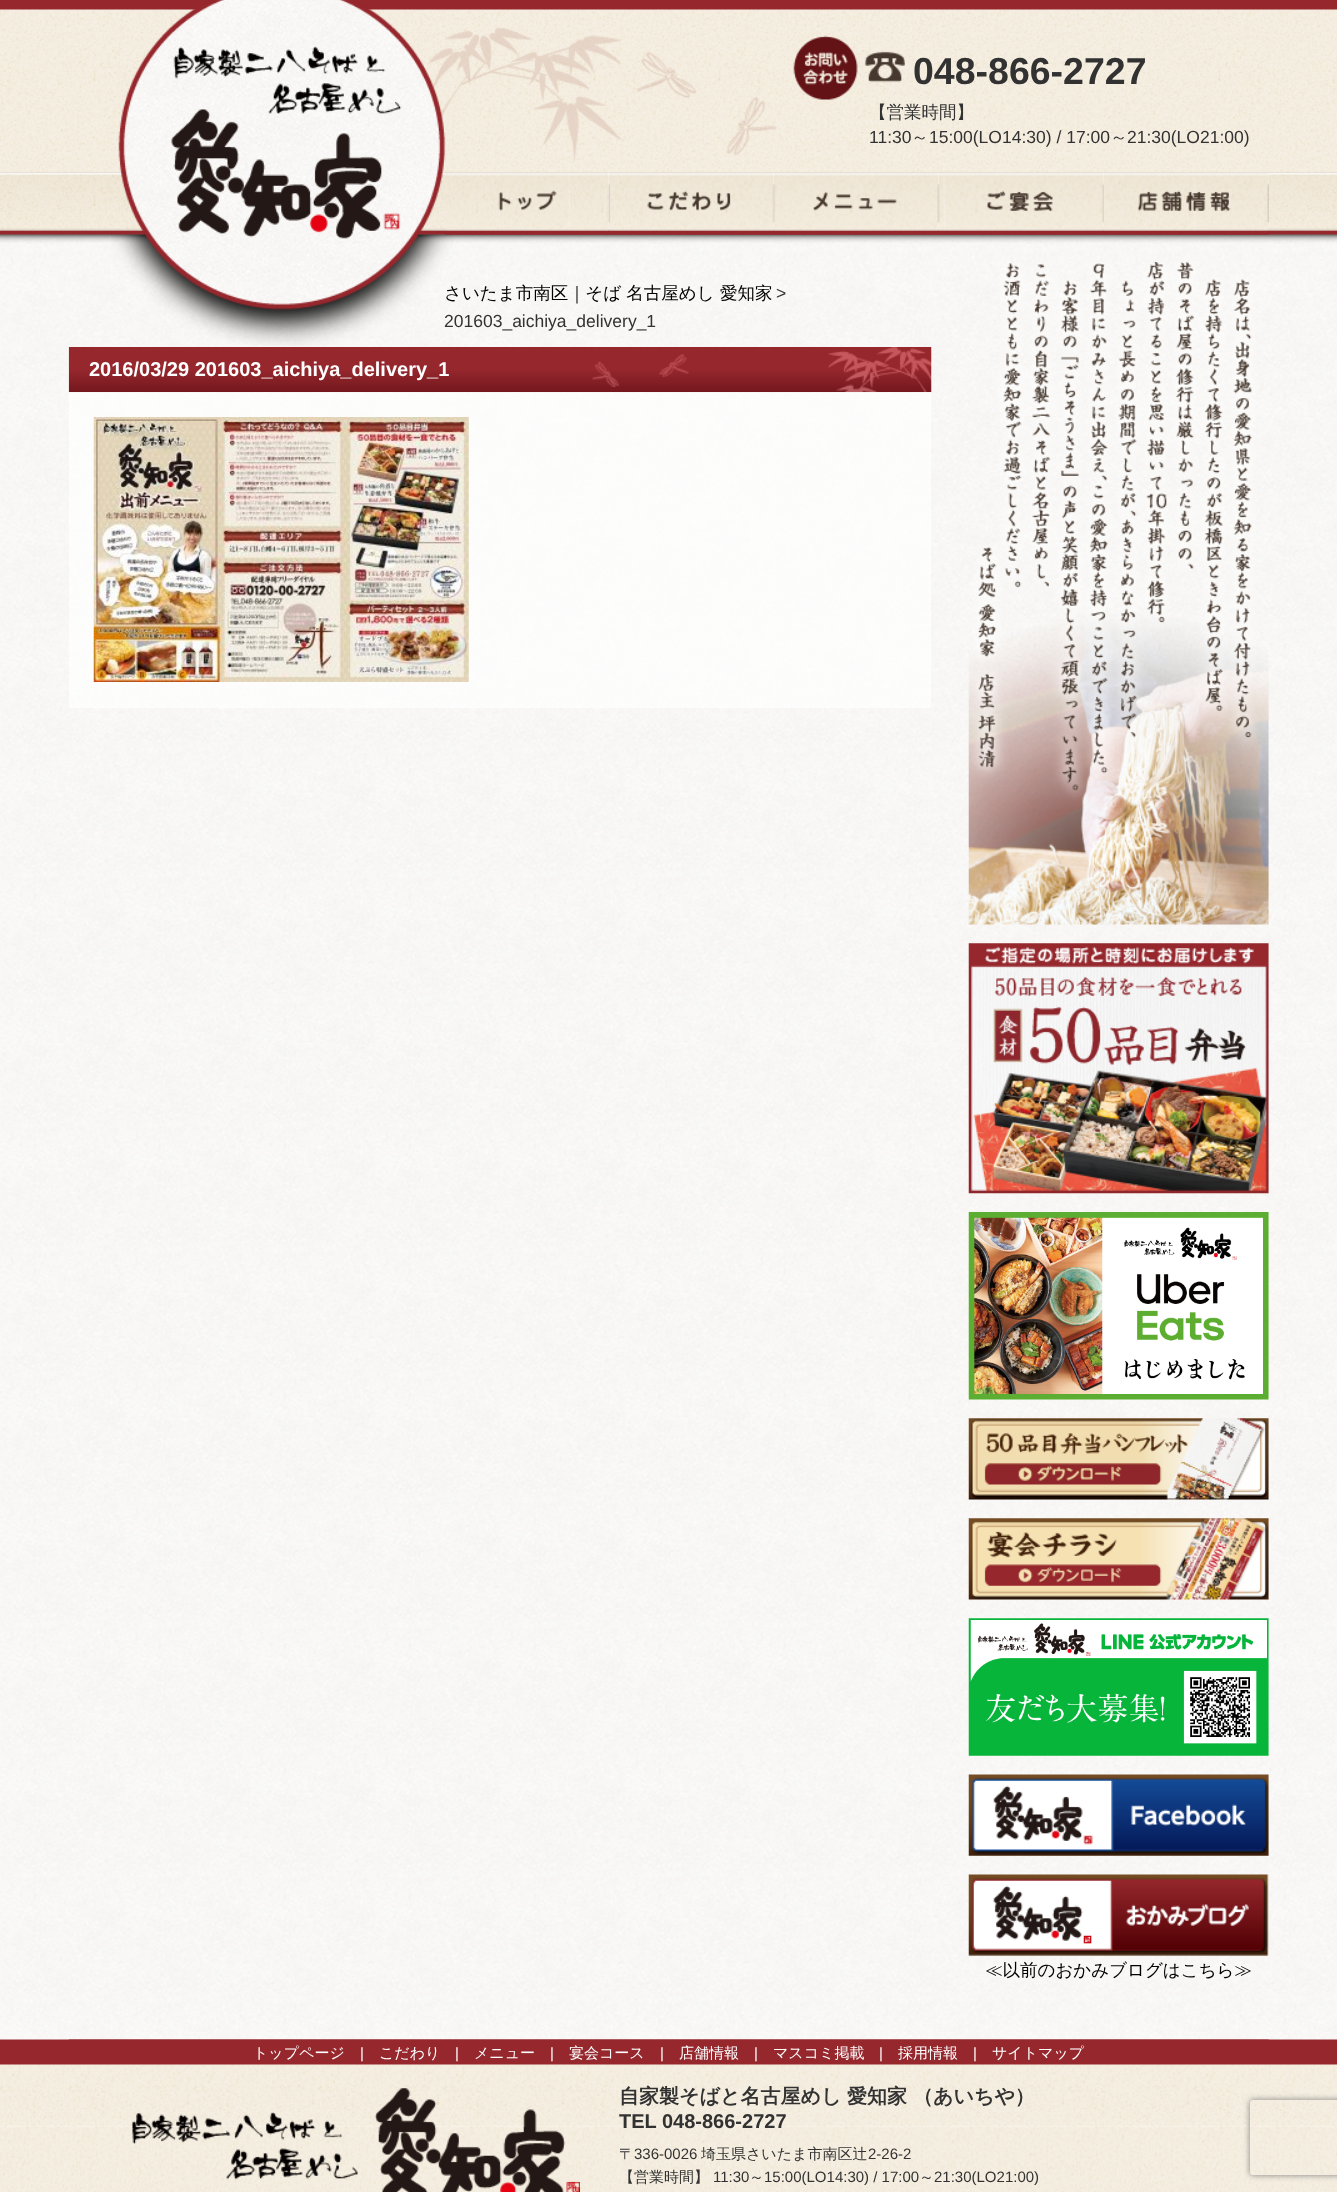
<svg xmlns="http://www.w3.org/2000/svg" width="1337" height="2192">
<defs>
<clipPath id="clip1"><path d="M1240 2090h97v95h-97zm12.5 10h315c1.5 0 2.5 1 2.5 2.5v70c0 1.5-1 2.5-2.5 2.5h-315c-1.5 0-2.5-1-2.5-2.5v-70c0-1.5 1-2.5 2.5-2.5z" clip-rule="evenodd"/></clipPath>
</defs>
<rect width="100%" height="100%" fill="#fff"/>
<image x="0" y="234" width="1337" height="1806" href="media/1.png"/>
<image x="0" y="0" width="1337" height="243" href="media/2.png"/>
<image x="0" y="2039" width="1337" height="153" href="media/3.png"/>
<image x="428" y="28" width="349" height="135" href="media/4.png"/>
<image x="445" y="172" width="824" height="63" href="media/7.png"/>
<image x="445" y="172" width="164" height="63" href="media/8.png"/>
<text x="444" y="299" style="font-family:WenQuanYi Zen Hei;font-size:17.5px;font-weight:500;fill:#000">さいたま市南区｜そば 名古屋めし 愛知家</text>
<text x="444" y="327" style="font-family:Liberation Sans;font-size:17.5px;fill:#323232">201603_aichiya_delivery_1</text>
<image x="111" y="0" width="342" height="346" href="media/5.png"/>
<image x="793" y="35" width="112" height="65" href="media/6.png"/>
<text x="913" y="84" style="font-family:Liberation Sans;font-size:37.5px;font-weight:bold;fill:#323232">048-866-2727</text>
<text x="869" y="118" style="font-family:WenQuanYi Zen Hei;font-size:17.5px;font-weight:500;fill:#323232">【営業時間】</text>
<text x="869" y="143" style="font-family:Liberation Sans;font-size:17.5px;fill:#323232">11:30</text>
<text x="911" y="143" style="font-family:WenQuanYi Zen Hei;font-size:17.5px;font-weight:500;fill:#323232">～</text>
<text x="929" y="143" style="font-family:Liberation Sans;font-size:17.5px;fill:#323232">15:00(LO14:30) / 17:00</text>
<text x="1110" y="143" style="font-family:WenQuanYi Zen Hei;font-size:17.5px;font-weight:500;fill:#323232">～</text>
<text x="1127" y="143" style="font-family:Liberation Sans;font-size:17.5px;fill:#323232">21:30(LO21:00)</text>
<image x="609" y="172" width="165" height="63" href="media/9.png"/>
<image x="774" y="172" width="165" height="63" href="media/10.png"/>
<image x="939" y="172" width="165" height="63" href="media/11.png"/>
<image x="1104" y="173" width="165" height="62" href="media/12.png"/>
<text x="776" y="299" style="font-family:Liberation Sans;font-size:17.5px;fill:#323232">&gt;</text>
<image x="68" y="347" width="864" height="45" href="media/13.png"/>
<text x="89" y="376" style="font-family:Liberation Sans;font-size:20px;font-weight:bold;fill:#fff">2016/03/29 201603_aichiya_delivery_1</text>
<rect x="69" y="393" width="862" height="315" fill="#ffffffb3"/>
<image x="93" y="417" width="376" height="265" href="media/14.png"/>
<image x="968" y="262" width="301" height="663" href="media/15.png"/>
<image x="968" y="943" width="301" height="251" href="media/16.png"/>
<image x="968" y="1212" width="301" height="188" href="media/17.png"/>
<image x="968" y="1418" width="301" height="82" href="media/18.png"/>
<image x="968" y="1518" width="301" height="82" href="media/19.png"/>
<image x="968" y="1618" width="301" height="138" href="media/20.png"/>
<image x="968" y="1774" width="301" height="82" href="media/21.png"/>
<image x="968" y="1874" width="301" height="82" href="media/22.png"/>
<text x="985" y="1976" style="font-family:WenQuanYi Zen Hei;font-size:17.5px;font-weight:500;fill:#000">≪以前のおかみブログはこちら≫</text>
<image x="68" y="2039" width="1201" height="153" href="media/23.png"/>
<text x="253" y="2058" style="font-family:WenQuanYi Zen Hei;font-size:15px;font-weight:500;fill:#fff">トップページ</text>
<text x="360" y="2058" style="font-family:Liberation Sans;font-size:15px;fill:#fff">|</text>
<text x="379" y="2058" style="font-family:WenQuanYi Zen Hei;font-size:15px;font-weight:500;fill:#fff">こだわり</text>
<text x="455" y="2058" style="font-family:Liberation Sans;font-size:15px;fill:#fff">|</text>
<text x="474" y="2058" style="font-family:WenQuanYi Zen Hei;font-size:15px;font-weight:500;fill:#fff">メニュー</text>
<text x="550" y="2058" style="font-family:Liberation Sans;font-size:15px;fill:#fff">|</text>
<text x="569" y="2058" style="font-family:WenQuanYi Zen Hei;font-size:15px;font-weight:500;fill:#fff">宴会コース</text>
<text x="660" y="2058" style="font-family:Liberation Sans;font-size:15px;fill:#fff">|</text>
<text x="679" y="2058" style="font-family:WenQuanYi Zen Hei;font-size:15px;font-weight:500;fill:#fff">店舗情報</text>
<text x="754" y="2058" style="font-family:Liberation Sans;font-size:15px;fill:#fff">|</text>
<text x="773" y="2058" style="font-family:WenQuanYi Zen Hei;font-size:15px;font-weight:500;fill:#fff">マスコミ掲載</text>
<text x="879" y="2058" style="font-family:Liberation Sans;font-size:15px;fill:#fff">|</text>
<text x="898" y="2058" style="font-family:WenQuanYi Zen Hei;font-size:15px;font-weight:500;fill:#fff">採用情報</text>
<text x="973" y="2058" style="font-family:Liberation Sans;font-size:15px;fill:#fff">|</text>
<text x="992" y="2058" style="font-family:WenQuanYi Zen Hei;font-size:15px;font-weight:500;fill:#fff">サイトマップ</text>
<image x="132" y="2088" width="448" height="104" href="media/24.png"/>
<text x="619" y="2103" style="font-family:WenQuanYi Zen Hei;font-size:20px;font-weight:bold;fill:#323232">自家製そばと名古屋めし</text>
<text x="847" y="2103" style="font-family:WenQuanYi Zen Hei;font-size:20px;font-weight:bold;fill:#323232">愛知家 （あいちや）</text>
<text x="619" y="2128" style="font-family:Liberation Sans;font-size:20px;font-weight:bold;fill:#323232">TEL 048-866-2727</text>
<text x="619" y="2159" style="font-family:WenQuanYi Zen Hei;font-size:15px;font-weight:500;fill:#323232">〒</text>
<text x="634" y="2159" style="font-family:Liberation Sans;font-size:15px;fill:#323232">336-0026</text>
<text x="701" y="2159" style="font-family:WenQuanYi Zen Hei;font-size:15px;font-weight:500;fill:#323232">埼玉県さいたま市南区辻</text>
<text x="868" y="2159" style="font-family:Liberation Sans;font-size:15px;fill:#323232">2-26-2</text>
<text x="619" y="2182" style="font-family:WenQuanYi Zen Hei;font-size:15px;font-weight:500;fill:#323232">【営業時間】</text>
<text x="713" y="2182" style="font-family:Liberation Sans;font-size:15px;fill:#323232">11:30</text>
<text x="749" y="2182" style="font-family:WenQuanYi Zen Hei;font-size:15px;font-weight:500;fill:#323232">～</text>
<text x="764" y="2182" style="font-family:Liberation Sans;font-size:15px;fill:#323232">15:00(LO14:30) / 17:00</text>
<text x="919" y="2182" style="font-family:WenQuanYi Zen Hei;font-size:15px;font-weight:500;fill:#323232">～</text>
<text x="934" y="2182" style="font-family:Liberation Sans;font-size:15px;fill:#323232">21:30(LO21:00)</text>
<g clip-path="url(#clip1)">
<rect x="1250" y="2100" width="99" height="75" rx="2.5" fill="#808080" filter="blur(3px)"/>
</g>
</svg>
